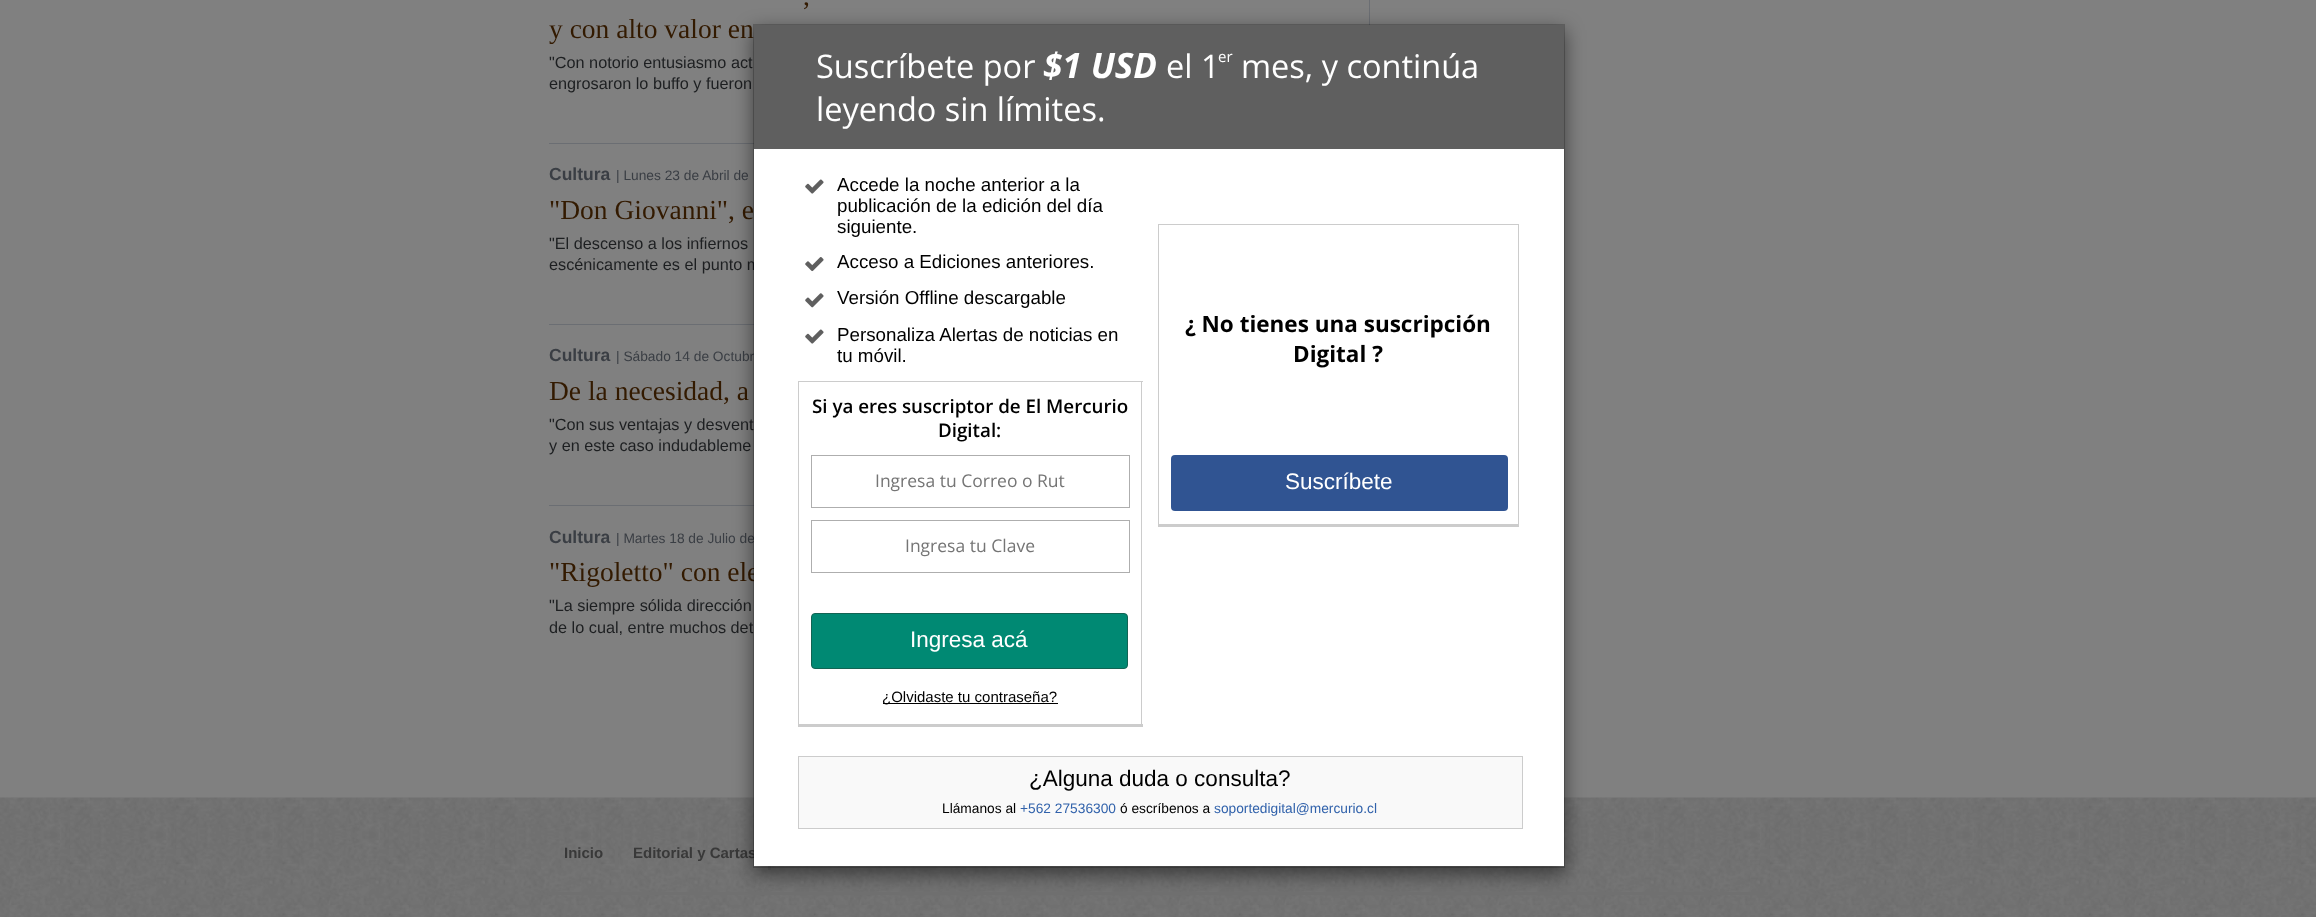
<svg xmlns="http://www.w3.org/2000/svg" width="2316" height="917">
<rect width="100%" height="100%" fill="#808080"/>
<rect x="1369" width="1" height="25" fill="#6b6e73"/>
<rect x="549" y="143" width="205" height="1" fill="#6b6e73"/>
<text x="803" y="5" style="font-family:Liberation Serif;font-size:27.5px;fill:#331a00">,</text>
<text x="549" y="38" style="font-family:Liberation Serif;font-size:27.5px;fill:#331a00">y con alto valor en</text>
<text x="549" y="68" style="font-family:Liberation Sans;font-size:16.25px;fill:#1d1f21">"Con notorio entusiasmo act</text>
<text x="549" y="89" style="font-family:Liberation Sans;font-size:16.25px;fill:#1d1f21">engrosaron lo buffo y fueron</text>
<rect x="549" y="324" width="205" height="1" fill="#6b6e73"/>
<text x="549" y="180" style="font-family:Liberation Sans;font-size:17.5px;font-weight:bold;fill:#3a3e44">Cultura</text>
<text x="616" y="180" style="font-family:Liberation Sans;font-size:13.75px;fill:#3a3e44">| Lunes 23 de Abril de</text>
<text x="549" y="219" style="font-family:Liberation Serif;font-size:27.5px;fill:#331a00">"Don Giovanni", e</text>
<text x="549" y="249" style="font-family:Liberation Sans;font-size:16.25px;fill:#1d1f21">"El descenso a los infiernos</text>
<text x="549" y="270" style="font-family:Liberation Sans;font-size:16.25px;fill:#1d1f21">escénicamente es el punto m</text>
<rect x="549" y="505" width="205" height="1" fill="#6b6e73"/>
<text x="549" y="361" style="font-family:Liberation Sans;font-size:17.5px;font-weight:bold;fill:#3a3e44">Cultura</text>
<text x="616" y="361" style="font-family:Liberation Sans;font-size:13.75px;fill:#3a3e44">| Sábado 14 de Octubr</text>
<text x="549" y="400" style="font-family:Liberation Serif;font-size:27.5px;fill:#331a00">De la necesidad, a</text>
<text x="549" y="430" style="font-family:Liberation Sans;font-size:16.25px;fill:#1d1f21">"Con sus ventajas y desvent</text>
<text x="549" y="451" style="font-family:Liberation Sans;font-size:16.25px;fill:#1d1f21">y en este caso indudableme</text>
<text x="549" y="543" style="font-family:Liberation Sans;font-size:17.5px;font-weight:bold;fill:#3a3e44">Cultura</text>
<text x="616" y="543" style="font-family:Liberation Sans;font-size:13.75px;fill:#3a3e44">| Martes 18 de Julio de</text>
<text x="549" y="581" style="font-family:Liberation Serif;font-size:27.5px;fill:#331a00">"Rigoletto" con ele</text>
<text x="549" y="611" style="font-family:Liberation Sans;font-size:16.25px;fill:#1d1f21">"La siempre sólida dirección</text>
<text x="549" y="633" style="font-family:Liberation Sans;font-size:16.25px;fill:#1d1f21">de lo cual, entre muchos det</text>
<image x="0" y="797" width="2316" height="120" href="media/1.png"/>
<rect x="548" y="892" width="1220" height="3" fill="#707070"/>
<rect x="615" y="844" width="3" height="26" fill="#717171"/>
<text x="564" y="858" style="font-family:Liberation Sans;font-size:15px;font-weight:bold;fill:#393939">Inicio</text>
<rect x="768" y="866" width="3" height="4" fill="#696969"/>
<text x="633" y="858" style="font-family:Liberation Sans;font-size:15px;font-weight:bold;fill:#393939">Editorial y Cartas</text>
<rect x="753" y="30" width="812" height="844" fill="#00000080" filter="blur(9.5px)"/>
<rect x="754" y="149" width="810" height="717" fill="#fff"/>
<rect x="753.5" y="24.5" width="811" height="843" fill="none" stroke="#00000033"/>
<rect x="754" y="25" width="810" height="124" fill="#5f5f5f"/>
<text x="816" y="78" style="font-family:Open Sans;font-size:32.5px;fill:#fff">Suscríbete por</text>
<text x="1043" y="78" style="font-family:Open Sans;font-size:35px;font-weight:bold;font-style:italic;fill:#fff">$1 USD</text>
<text x="1166" y="78" style="font-family:Open Sans;font-size:32.5px;fill:#fff">el 1</text>
<text x="1218" y="62" style="font-family:Open Sans;font-size:15px;fill:#fff">er</text>
<text x="1241" y="78" style="font-family:Open Sans;font-size:32.5px;fill:#fff">mes, y continúa</text>
<text x="816" y="121" style="font-family:Open Sans;font-size:32.5px;fill:#fff">leyendo sin límites.</text>
<image x="805" y="179" width="19" height="15" href="media/2.png"/>
<text x="837" y="191" style="font-family:Liberation Sans;font-size:18.75px;fill:#000">Accede la noche anterior a la</text>
<text x="837" y="212" style="font-family:Liberation Sans;font-size:18.75px;fill:#000">publicación de la edición del día</text>
<text x="837" y="233" style="font-family:Liberation Sans;font-size:18.75px;fill:#000">siguiente.</text>
<image x="805" y="257" width="19" height="15" href="media/3.png"/>
<text x="837" y="268" style="font-family:Liberation Sans;font-size:18.75px;fill:#000">Acceso a Ediciones anteriores.</text>
<image x="805" y="293" width="19" height="15" href="media/4.png"/>
<text x="837" y="304" style="font-family:Liberation Sans;font-size:18.75px;fill:#000">Versión Offline descargable</text>
<image x="805" y="329" width="19" height="15" href="media/2.png"/>
<text x="837" y="341" style="font-family:Liberation Sans;font-size:18.75px;fill:#000">Personaliza Alertas de noticias en</text>
<text x="837" y="362" style="font-family:Liberation Sans;font-size:18.75px;fill:#000">tu móvil.</text>
<rect x="798" y="381" width="345" height="1" fill="#ccc"/>
<rect x="1141" y="381" width="1" height="345" fill="#ccc"/>
<rect x="798" y="724" width="345" height="3" fill="#ccc"/>
<rect x="798" y="381" width="1" height="345" fill="#ccc"/>
<text x="812" y="413" style="font-family:Open Sans;font-size:18.75px;font-weight:600;fill:#000">Si ya eres suscriptor de El Mercurio</text>
<text x="938" y="437" style="font-family:Open Sans;font-size:18.75px;font-weight:600;fill:#000">Digital:</text>
<rect x="811.5" y="455.5" width="318" height="52" fill="none" stroke="#aeaeae"/>
<text x="875" y="487" style="font-family:Open Sans;font-size:17.5px;fill:#757575">Ingresa tu Correo o Rut</text>
<rect x="811.5" y="520.5" width="318" height="52" fill="none" stroke="#aeaeae"/>
<text x="905" y="552" style="font-family:Open Sans;font-size:17.5px;fill:#757575">Ingresa tu Clave</text>
<rect x="811.5" y="613.5" width="316" height="55" rx="3.5" fill="#008973" stroke="#126454"/>
<text x="910" y="647" style="font-family:Liberation Sans;font-size:22.5px;fill:#fff">Ingresa acá</text>
<rect x="883" y="703" width="175" height="1" fill="#000"/>
<text x="882" y="702" style="font-family:Liberation Sans;font-size:15px;fill:#000">¿Olvidaste tu contraseña?</text>
<rect x="1158" y="224" width="361" height="1" fill="#ccc"/>
<rect x="1518" y="224" width="1" height="302" fill="#ccc"/>
<rect x="1158" y="524" width="361" height="3" fill="#ccc"/>
<rect x="1158" y="224" width="1" height="302" fill="#ccc"/>
<text x="1185" y="332" style="font-family:Open Sans;font-size:22.5px;font-weight:bold;fill:#000">¿ No tienes una suscripción</text>
<text x="1293" y="362" style="font-family:Open Sans;font-size:22.5px;font-weight:bold;fill:#000">Digital ?</text>
<rect x="1171" y="455" width="337" height="56" rx="4" fill="#305492"/>
<text x="1285" y="489" style="font-family:Liberation Sans;font-size:22.5px;fill:#fff">Suscríbete</text>
<rect x="798.5" y="756.5" width="724" height="72" fill="#f9f9f9" stroke="#ccc"/>
<text x="1029" y="786" style="font-family:Liberation Sans;font-size:22.5px;fill:#000">¿Alguna duda o consulta?</text>
<text x="942" y="813" style="font-family:Liberation Sans;font-size:13.75px;fill:#000">Llámanos al</text>
<text x="1020" y="813" style="font-family:Liberation Sans;font-size:13.75px;fill:#3162ab">+562 27536300</text>
<text x="1120" y="813" style="font-family:Liberation Sans;font-size:13.75px;fill:#000">ó escríbenos a</text>
<text x="1214" y="813" style="font-family:Liberation Sans;font-size:13.75px;fill:#3162ab">soportedigital@mercurio.cl</text>
</svg>
